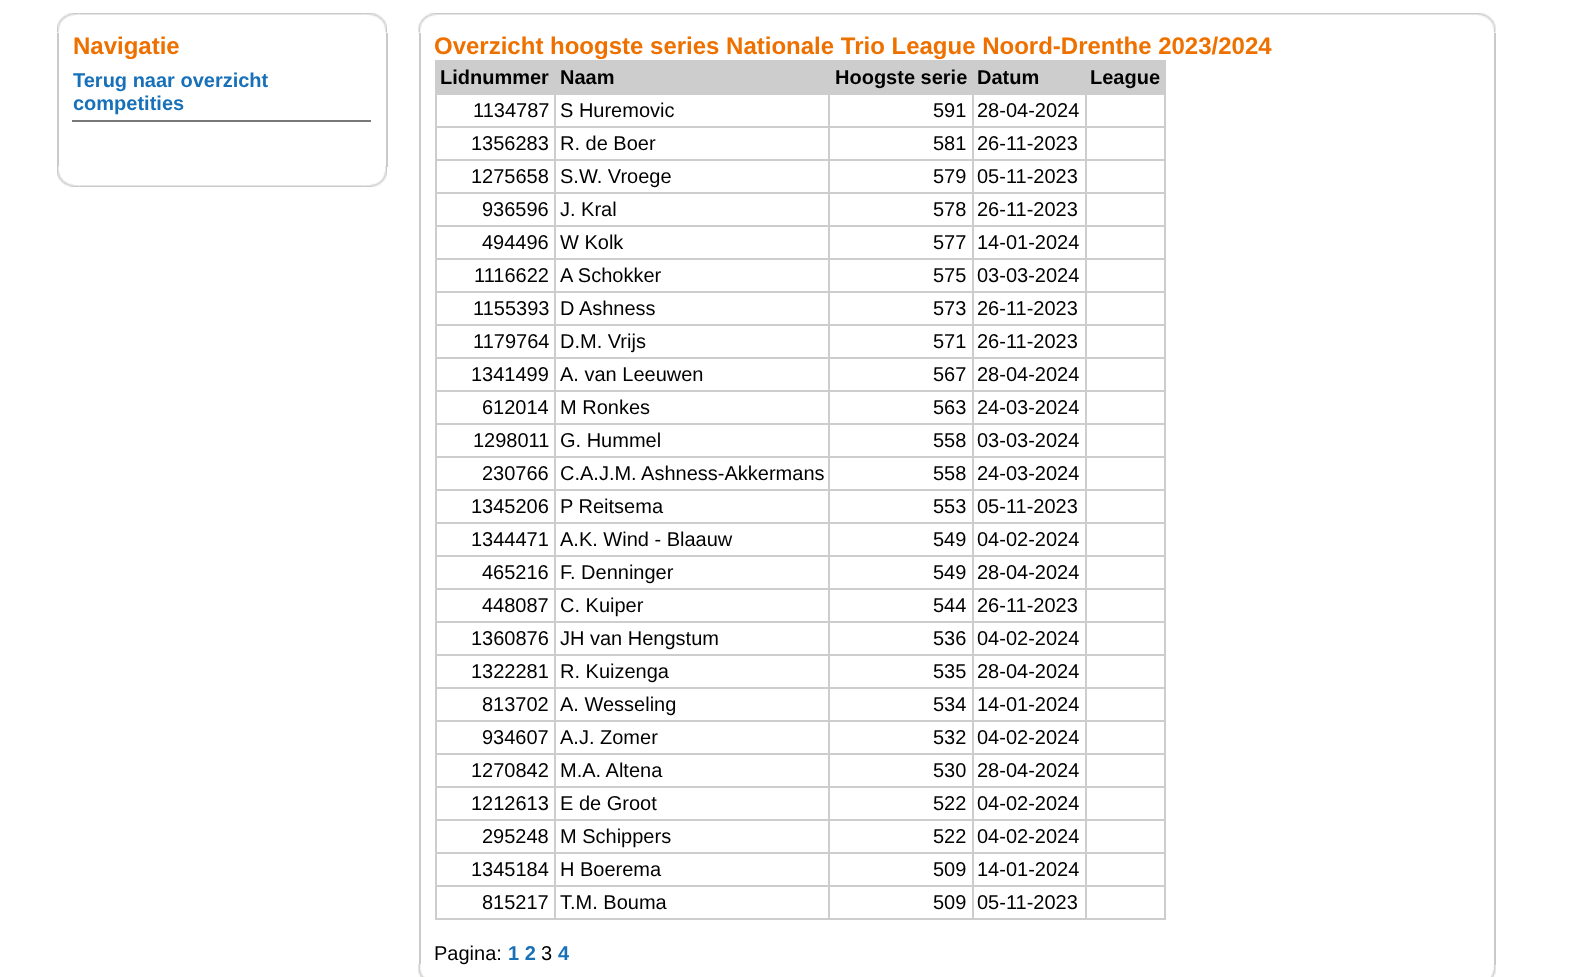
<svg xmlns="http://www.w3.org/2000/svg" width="1582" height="977">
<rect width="100%" height="100%" fill="#fff"/>
<image x="79" y="13" width="286" height="2" href="media/2.png"/>
<image x="57" y="13" width="23" height="20" href="media/1.png"/>
<image x="364" y="13" width="23" height="20" href="media/3.png"/>
<rect x="386" y="33" width="2" height="134" fill="#cacaca"/>
<rect x="57" y="33" width="2" height="134" fill="#cacaca"/>
<text x="73" y="54" style="font-family:Liberation Sans;font-size:24px;font-weight:bold;fill:#ee7100">Navigatie</text>
<rect x="72" y="120" width="299" height="2" fill="#787878"/>
<text x="73" y="87" style="font-family:Liberation Sans;font-size:20px;font-weight:bold;fill:#1770b8">Terug naar overzicht</text>
<text x="73" y="110" style="font-family:Liberation Sans;font-size:20px;font-weight:bold;fill:#1770b8">competities</text>
<image x="79" y="185" width="286" height="2" href="media/5.png"/>
<image x="57" y="166" width="23" height="21" href="media/4.png"/>
<image x="364" y="166" width="23" height="21" href="media/6.png"/>
<image x="418" y="13" width="23" height="20" href="media/7.png"/>
<image x="441" y="13" width="1032" height="2" href="media/8.png"/>
<image x="1473" y="13" width="23" height="20" href="media/9.png"/>
<rect x="1494" y="33" width="2" height="932" fill="#cacaca"/>
<rect x="419" y="33" width="2" height="932" fill="#cacaca"/>
<text x="434" y="54" style="font-family:Liberation Sans;font-size:24px;font-weight:bold;fill:#ee7100">Overzicht hoogste series Nationale Trio League Noord-Drenthe 2023/2024</text>
<rect x="435" y="62" width="731" height="33" fill="#cdcdcd"/>
<text x="440" y="84" style="font-family:Liberation Sans;font-size:20px;font-weight:bold;fill:#000">Lidnummer</text>
<text x="560" y="84" style="font-family:Liberation Sans;font-size:20px;font-weight:bold;fill:#000">Naam</text>
<text x="835" y="84" style="font-family:Liberation Sans;font-size:20px;font-weight:bold;fill:#000">Hoogste serie</text>
<text x="977" y="84" style="font-family:Liberation Sans;font-size:20px;font-weight:bold;fill:#000">Datum</text>
<rect x="435" y="60" width="731" height="2" fill="#cdcdcd"/>
<text x="1090" y="84" style="font-family:Liberation Sans;font-size:20px;font-weight:bold;fill:#000">League</text>
<text x="473" y="117" style="font-family:Liberation Sans;font-size:20px;fill:#000">1134787</text>
<rect x="1085" y="126" width="81" height="2" fill="#cdcdcd"/>
<rect x="1085" y="159" width="81" height="2" fill="#cdcdcd"/>
<rect x="1085" y="192" width="81" height="2" fill="#cdcdcd"/>
<rect x="1085" y="225" width="81" height="2" fill="#cdcdcd"/>
<rect x="1085" y="258" width="81" height="2" fill="#cdcdcd"/>
<rect x="1085" y="291" width="81" height="2" fill="#cdcdcd"/>
<rect x="1085" y="324" width="81" height="2" fill="#cdcdcd"/>
<rect x="1085" y="357" width="81" height="2" fill="#cdcdcd"/>
<rect x="1085" y="390" width="81" height="2" fill="#cdcdcd"/>
<rect x="1085" y="423" width="81" height="2" fill="#cdcdcd"/>
<rect x="1085" y="456" width="81" height="2" fill="#cdcdcd"/>
<rect x="1085" y="489" width="81" height="2" fill="#cdcdcd"/>
<rect x="1085" y="522" width="81" height="2" fill="#cdcdcd"/>
<rect x="1085" y="555" width="81" height="2" fill="#cdcdcd"/>
<rect x="1085" y="588" width="81" height="2" fill="#cdcdcd"/>
<rect x="1085" y="621" width="81" height="2" fill="#cdcdcd"/>
<rect x="1085" y="654" width="81" height="2" fill="#cdcdcd"/>
<rect x="1085" y="687" width="81" height="2" fill="#cdcdcd"/>
<rect x="1085" y="720" width="81" height="2" fill="#cdcdcd"/>
<rect x="1085" y="753" width="81" height="2" fill="#cdcdcd"/>
<rect x="1085" y="786" width="81" height="2" fill="#cdcdcd"/>
<rect x="1085" y="819" width="81" height="2" fill="#cdcdcd"/>
<rect x="1085" y="852" width="81" height="2" fill="#cdcdcd"/>
<rect x="1085" y="885" width="81" height="2" fill="#cdcdcd"/>
<rect x="1164" y="885" width="2" height="35" fill="#cdcdcd"/>
<rect x="1085" y="918" width="81" height="2" fill="#cdcdcd"/>
<rect x="1085" y="885" width="2" height="35" fill="#cdcdcd"/>
<rect x="972" y="885" width="114" height="2" fill="#cdcdcd"/>
<rect x="1085" y="852" width="2" height="35" fill="#cdcdcd"/>
<rect x="972" y="852" width="114" height="2" fill="#cdcdcd"/>
<rect x="1085" y="819" width="2" height="35" fill="#cdcdcd"/>
<rect x="972" y="819" width="114" height="2" fill="#cdcdcd"/>
<rect x="1085" y="786" width="2" height="35" fill="#cdcdcd"/>
<rect x="972" y="786" width="114" height="2" fill="#cdcdcd"/>
<rect x="1085" y="753" width="2" height="35" fill="#cdcdcd"/>
<rect x="972" y="753" width="114" height="2" fill="#cdcdcd"/>
<rect x="1085" y="720" width="2" height="35" fill="#cdcdcd"/>
<rect x="972" y="720" width="114" height="2" fill="#cdcdcd"/>
<rect x="1085" y="687" width="2" height="35" fill="#cdcdcd"/>
<rect x="972" y="687" width="114" height="2" fill="#cdcdcd"/>
<rect x="1085" y="654" width="2" height="35" fill="#cdcdcd"/>
<rect x="972" y="654" width="114" height="2" fill="#cdcdcd"/>
<rect x="1085" y="621" width="2" height="35" fill="#cdcdcd"/>
<rect x="972" y="621" width="114" height="2" fill="#cdcdcd"/>
<rect x="1085" y="588" width="2" height="35" fill="#cdcdcd"/>
<rect x="972" y="588" width="114" height="2" fill="#cdcdcd"/>
<rect x="1085" y="555" width="2" height="35" fill="#cdcdcd"/>
<rect x="972" y="555" width="114" height="2" fill="#cdcdcd"/>
<rect x="1085" y="522" width="2" height="35" fill="#cdcdcd"/>
<rect x="972" y="522" width="114" height="2" fill="#cdcdcd"/>
<rect x="1085" y="489" width="2" height="35" fill="#cdcdcd"/>
<rect x="972" y="489" width="114" height="2" fill="#cdcdcd"/>
<rect x="1085" y="456" width="2" height="35" fill="#cdcdcd"/>
<rect x="972" y="456" width="114" height="2" fill="#cdcdcd"/>
<rect x="1085" y="423" width="2" height="35" fill="#cdcdcd"/>
<rect x="972" y="423" width="114" height="2" fill="#cdcdcd"/>
<rect x="1085" y="390" width="2" height="35" fill="#cdcdcd"/>
<rect x="972" y="390" width="114" height="2" fill="#cdcdcd"/>
<rect x="1085" y="357" width="2" height="35" fill="#cdcdcd"/>
<rect x="972" y="357" width="114" height="2" fill="#cdcdcd"/>
<rect x="1085" y="324" width="2" height="35" fill="#cdcdcd"/>
<rect x="972" y="324" width="114" height="2" fill="#cdcdcd"/>
<rect x="1085" y="291" width="2" height="35" fill="#cdcdcd"/>
<rect x="972" y="291" width="114" height="2" fill="#cdcdcd"/>
<rect x="1085" y="258" width="2" height="35" fill="#cdcdcd"/>
<rect x="972" y="258" width="114" height="2" fill="#cdcdcd"/>
<rect x="1085" y="225" width="2" height="35" fill="#cdcdcd"/>
<rect x="972" y="225" width="114" height="2" fill="#cdcdcd"/>
<rect x="1085" y="192" width="2" height="35" fill="#cdcdcd"/>
<rect x="972" y="192" width="114" height="2" fill="#cdcdcd"/>
<rect x="1085" y="159" width="2" height="35" fill="#cdcdcd"/>
<rect x="972" y="159" width="114" height="2" fill="#cdcdcd"/>
<rect x="1085" y="126" width="2" height="35" fill="#cdcdcd"/>
<rect x="972" y="126" width="114" height="2" fill="#cdcdcd"/>
<rect x="972" y="918" width="114" height="2" fill="#cdcdcd"/>
<rect x="972" y="885" width="2" height="35" fill="#cdcdcd"/>
<rect x="828" y="885" width="146" height="2" fill="#cdcdcd"/>
<rect x="972" y="852" width="2" height="35" fill="#cdcdcd"/>
<rect x="828" y="852" width="146" height="2" fill="#cdcdcd"/>
<rect x="972" y="819" width="2" height="35" fill="#cdcdcd"/>
<rect x="828" y="819" width="146" height="2" fill="#cdcdcd"/>
<rect x="972" y="786" width="2" height="35" fill="#cdcdcd"/>
<rect x="828" y="786" width="146" height="2" fill="#cdcdcd"/>
<rect x="972" y="753" width="2" height="35" fill="#cdcdcd"/>
<rect x="828" y="753" width="146" height="2" fill="#cdcdcd"/>
<rect x="972" y="720" width="2" height="35" fill="#cdcdcd"/>
<rect x="828" y="720" width="146" height="2" fill="#cdcdcd"/>
<rect x="972" y="687" width="2" height="35" fill="#cdcdcd"/>
<rect x="828" y="687" width="146" height="2" fill="#cdcdcd"/>
<rect x="972" y="654" width="2" height="35" fill="#cdcdcd"/>
<rect x="828" y="654" width="146" height="2" fill="#cdcdcd"/>
<rect x="972" y="621" width="2" height="35" fill="#cdcdcd"/>
<rect x="828" y="621" width="146" height="2" fill="#cdcdcd"/>
<rect x="972" y="588" width="2" height="35" fill="#cdcdcd"/>
<rect x="828" y="588" width="146" height="2" fill="#cdcdcd"/>
<rect x="972" y="555" width="2" height="35" fill="#cdcdcd"/>
<rect x="828" y="555" width="146" height="2" fill="#cdcdcd"/>
<rect x="972" y="522" width="2" height="35" fill="#cdcdcd"/>
<rect x="828" y="522" width="146" height="2" fill="#cdcdcd"/>
<rect x="972" y="489" width="2" height="35" fill="#cdcdcd"/>
<rect x="828" y="489" width="146" height="2" fill="#cdcdcd"/>
<rect x="972" y="456" width="2" height="35" fill="#cdcdcd"/>
<rect x="828" y="456" width="146" height="2" fill="#cdcdcd"/>
<rect x="972" y="423" width="2" height="35" fill="#cdcdcd"/>
<rect x="828" y="423" width="146" height="2" fill="#cdcdcd"/>
<rect x="972" y="390" width="2" height="35" fill="#cdcdcd"/>
<rect x="828" y="390" width="146" height="2" fill="#cdcdcd"/>
<rect x="972" y="357" width="2" height="35" fill="#cdcdcd"/>
<rect x="828" y="357" width="146" height="2" fill="#cdcdcd"/>
<rect x="972" y="324" width="2" height="35" fill="#cdcdcd"/>
<rect x="828" y="324" width="146" height="2" fill="#cdcdcd"/>
<rect x="972" y="291" width="2" height="35" fill="#cdcdcd"/>
<rect x="828" y="291" width="146" height="2" fill="#cdcdcd"/>
<rect x="972" y="258" width="2" height="35" fill="#cdcdcd"/>
<rect x="828" y="258" width="146" height="2" fill="#cdcdcd"/>
<rect x="972" y="225" width="2" height="35" fill="#cdcdcd"/>
<rect x="828" y="225" width="146" height="2" fill="#cdcdcd"/>
<rect x="972" y="192" width="2" height="35" fill="#cdcdcd"/>
<rect x="828" y="192" width="146" height="2" fill="#cdcdcd"/>
<rect x="972" y="159" width="2" height="35" fill="#cdcdcd"/>
<rect x="828" y="159" width="146" height="2" fill="#cdcdcd"/>
<rect x="972" y="126" width="2" height="35" fill="#cdcdcd"/>
<rect x="828" y="126" width="146" height="2" fill="#cdcdcd"/>
<rect x="828" y="918" width="146" height="2" fill="#cdcdcd"/>
<rect x="828" y="885" width="2" height="35" fill="#cdcdcd"/>
<rect x="554" y="885" width="276" height="2" fill="#cdcdcd"/>
<rect x="828" y="852" width="2" height="35" fill="#cdcdcd"/>
<rect x="554" y="852" width="276" height="2" fill="#cdcdcd"/>
<rect x="828" y="819" width="2" height="35" fill="#cdcdcd"/>
<rect x="554" y="819" width="276" height="2" fill="#cdcdcd"/>
<rect x="828" y="786" width="2" height="35" fill="#cdcdcd"/>
<rect x="554" y="786" width="276" height="2" fill="#cdcdcd"/>
<rect x="828" y="753" width="2" height="35" fill="#cdcdcd"/>
<rect x="554" y="753" width="276" height="2" fill="#cdcdcd"/>
<rect x="828" y="720" width="2" height="35" fill="#cdcdcd"/>
<rect x="554" y="720" width="276" height="2" fill="#cdcdcd"/>
<rect x="828" y="687" width="2" height="35" fill="#cdcdcd"/>
<rect x="554" y="687" width="276" height="2" fill="#cdcdcd"/>
<rect x="828" y="654" width="2" height="35" fill="#cdcdcd"/>
<rect x="554" y="654" width="276" height="2" fill="#cdcdcd"/>
<rect x="828" y="621" width="2" height="35" fill="#cdcdcd"/>
<rect x="554" y="621" width="276" height="2" fill="#cdcdcd"/>
<rect x="828" y="588" width="2" height="35" fill="#cdcdcd"/>
<rect x="554" y="588" width="276" height="2" fill="#cdcdcd"/>
<rect x="828" y="555" width="2" height="35" fill="#cdcdcd"/>
<rect x="554" y="555" width="276" height="2" fill="#cdcdcd"/>
<rect x="828" y="522" width="2" height="35" fill="#cdcdcd"/>
<rect x="554" y="522" width="276" height="2" fill="#cdcdcd"/>
<rect x="828" y="489" width="2" height="35" fill="#cdcdcd"/>
<rect x="554" y="489" width="276" height="2" fill="#cdcdcd"/>
<rect x="828" y="456" width="2" height="35" fill="#cdcdcd"/>
<rect x="554" y="456" width="276" height="2" fill="#cdcdcd"/>
<rect x="828" y="423" width="2" height="35" fill="#cdcdcd"/>
<rect x="554" y="423" width="276" height="2" fill="#cdcdcd"/>
<rect x="828" y="390" width="2" height="35" fill="#cdcdcd"/>
<rect x="554" y="390" width="276" height="2" fill="#cdcdcd"/>
<rect x="828" y="357" width="2" height="35" fill="#cdcdcd"/>
<rect x="554" y="357" width="276" height="2" fill="#cdcdcd"/>
<rect x="828" y="324" width="2" height="35" fill="#cdcdcd"/>
<rect x="554" y="324" width="276" height="2" fill="#cdcdcd"/>
<rect x="828" y="291" width="2" height="35" fill="#cdcdcd"/>
<rect x="554" y="291" width="276" height="2" fill="#cdcdcd"/>
<rect x="828" y="258" width="2" height="35" fill="#cdcdcd"/>
<rect x="554" y="258" width="276" height="2" fill="#cdcdcd"/>
<rect x="828" y="225" width="2" height="35" fill="#cdcdcd"/>
<rect x="554" y="225" width="276" height="2" fill="#cdcdcd"/>
<rect x="828" y="192" width="2" height="35" fill="#cdcdcd"/>
<rect x="554" y="192" width="276" height="2" fill="#cdcdcd"/>
<rect x="828" y="159" width="2" height="35" fill="#cdcdcd"/>
<rect x="554" y="159" width="276" height="2" fill="#cdcdcd"/>
<rect x="828" y="126" width="2" height="35" fill="#cdcdcd"/>
<rect x="554" y="126" width="276" height="2" fill="#cdcdcd"/>
<rect x="554" y="918" width="276" height="2" fill="#cdcdcd"/>
<rect x="554" y="885" width="2" height="35" fill="#cdcdcd"/>
<rect x="435" y="885" width="120" height="2" fill="#cdcdcd"/>
<rect x="554" y="852" width="2" height="35" fill="#cdcdcd"/>
<rect x="435" y="852" width="120" height="2" fill="#cdcdcd"/>
<rect x="554" y="819" width="2" height="35" fill="#cdcdcd"/>
<rect x="435" y="819" width="120" height="2" fill="#cdcdcd"/>
<rect x="554" y="786" width="2" height="35" fill="#cdcdcd"/>
<rect x="435" y="786" width="120" height="2" fill="#cdcdcd"/>
<rect x="554" y="753" width="2" height="35" fill="#cdcdcd"/>
<rect x="435" y="753" width="120" height="2" fill="#cdcdcd"/>
<rect x="554" y="720" width="2" height="35" fill="#cdcdcd"/>
<rect x="435" y="720" width="120" height="2" fill="#cdcdcd"/>
<rect x="554" y="687" width="2" height="35" fill="#cdcdcd"/>
<rect x="435" y="687" width="120" height="2" fill="#cdcdcd"/>
<rect x="554" y="654" width="2" height="35" fill="#cdcdcd"/>
<rect x="435" y="654" width="120" height="2" fill="#cdcdcd"/>
<rect x="554" y="621" width="2" height="35" fill="#cdcdcd"/>
<rect x="435" y="621" width="120" height="2" fill="#cdcdcd"/>
<rect x="554" y="588" width="2" height="35" fill="#cdcdcd"/>
<rect x="435" y="588" width="120" height="2" fill="#cdcdcd"/>
<rect x="554" y="555" width="2" height="35" fill="#cdcdcd"/>
<rect x="435" y="555" width="120" height="2" fill="#cdcdcd"/>
<rect x="554" y="522" width="2" height="35" fill="#cdcdcd"/>
<rect x="435" y="522" width="120" height="2" fill="#cdcdcd"/>
<rect x="554" y="489" width="2" height="35" fill="#cdcdcd"/>
<rect x="435" y="489" width="120" height="2" fill="#cdcdcd"/>
<rect x="554" y="456" width="2" height="35" fill="#cdcdcd"/>
<rect x="435" y="456" width="120" height="2" fill="#cdcdcd"/>
<rect x="554" y="423" width="2" height="35" fill="#cdcdcd"/>
<rect x="435" y="423" width="120" height="2" fill="#cdcdcd"/>
<rect x="554" y="390" width="2" height="35" fill="#cdcdcd"/>
<rect x="435" y="390" width="120" height="2" fill="#cdcdcd"/>
<rect x="554" y="357" width="2" height="35" fill="#cdcdcd"/>
<rect x="435" y="357" width="120" height="2" fill="#cdcdcd"/>
<rect x="554" y="324" width="2" height="35" fill="#cdcdcd"/>
<rect x="435" y="324" width="120" height="2" fill="#cdcdcd"/>
<rect x="554" y="291" width="2" height="35" fill="#cdcdcd"/>
<rect x="435" y="291" width="120" height="2" fill="#cdcdcd"/>
<rect x="554" y="258" width="2" height="35" fill="#cdcdcd"/>
<rect x="435" y="258" width="120" height="2" fill="#cdcdcd"/>
<rect x="554" y="225" width="2" height="35" fill="#cdcdcd"/>
<rect x="435" y="225" width="120" height="2" fill="#cdcdcd"/>
<rect x="554" y="192" width="2" height="35" fill="#cdcdcd"/>
<rect x="435" y="192" width="120" height="2" fill="#cdcdcd"/>
<rect x="554" y="159" width="2" height="35" fill="#cdcdcd"/>
<rect x="435" y="159" width="120" height="2" fill="#cdcdcd"/>
<rect x="554" y="126" width="2" height="35" fill="#cdcdcd"/>
<rect x="435" y="126" width="120" height="2" fill="#cdcdcd"/>
<rect x="554" y="93" width="2" height="35" fill="#cdcdcd"/>
<text x="560" y="117" style="font-family:Liberation Sans;font-size:20px;fill:#000">S Huremovic</text>
<rect x="828" y="93" width="2" height="35" fill="#cdcdcd"/>
<text x="933" y="117" style="font-family:Liberation Sans;font-size:20px;fill:#000">591</text>
<rect x="972" y="93" width="2" height="35" fill="#cdcdcd"/>
<text x="977" y="117" style="font-family:Liberation Sans;font-size:20px;fill:#000">28-04-2024</text>
<rect x="1085" y="93" width="2" height="35" fill="#cdcdcd"/>
<rect x="435" y="918" width="120" height="2" fill="#cdcdcd"/>
<rect x="435" y="885" width="2" height="35" fill="#cdcdcd"/>
<rect x="435" y="852" width="2" height="35" fill="#cdcdcd"/>
<rect x="435" y="819" width="2" height="35" fill="#cdcdcd"/>
<rect x="435" y="786" width="2" height="35" fill="#cdcdcd"/>
<rect x="435" y="753" width="2" height="35" fill="#cdcdcd"/>
<rect x="435" y="720" width="2" height="35" fill="#cdcdcd"/>
<rect x="435" y="687" width="2" height="35" fill="#cdcdcd"/>
<rect x="435" y="654" width="2" height="35" fill="#cdcdcd"/>
<rect x="435" y="621" width="2" height="35" fill="#cdcdcd"/>
<rect x="435" y="588" width="2" height="35" fill="#cdcdcd"/>
<rect x="435" y="555" width="2" height="35" fill="#cdcdcd"/>
<rect x="435" y="522" width="2" height="35" fill="#cdcdcd"/>
<rect x="435" y="489" width="2" height="35" fill="#cdcdcd"/>
<rect x="435" y="456" width="2" height="35" fill="#cdcdcd"/>
<rect x="435" y="423" width="2" height="35" fill="#cdcdcd"/>
<rect x="435" y="390" width="2" height="35" fill="#cdcdcd"/>
<rect x="435" y="357" width="2" height="35" fill="#cdcdcd"/>
<rect x="435" y="324" width="2" height="35" fill="#cdcdcd"/>
<rect x="435" y="291" width="2" height="35" fill="#cdcdcd"/>
<rect x="435" y="258" width="2" height="35" fill="#cdcdcd"/>
<rect x="435" y="225" width="2" height="35" fill="#cdcdcd"/>
<rect x="435" y="192" width="2" height="35" fill="#cdcdcd"/>
<rect x="435" y="159" width="2" height="35" fill="#cdcdcd"/>
<rect x="435" y="93" width="2" height="68" fill="#cdcdcd"/>
<text x="471" y="150" style="font-family:Liberation Sans;font-size:20px;fill:#000">1356283</text>
<text x="560" y="150" style="font-family:Liberation Sans;font-size:20px;fill:#000">R. de Boer</text>
<text x="933" y="150" style="font-family:Liberation Sans;font-size:20px;fill:#000">581</text>
<text x="977" y="150" style="font-family:Liberation Sans;font-size:20px;fill:#000">26-11-2023</text>
<rect x="1164" y="852" width="2" height="35" fill="#cdcdcd"/>
<rect x="1164" y="819" width="2" height="35" fill="#cdcdcd"/>
<rect x="1164" y="786" width="2" height="35" fill="#cdcdcd"/>
<rect x="1164" y="753" width="2" height="35" fill="#cdcdcd"/>
<rect x="1164" y="720" width="2" height="35" fill="#cdcdcd"/>
<rect x="1164" y="687" width="2" height="35" fill="#cdcdcd"/>
<rect x="1164" y="654" width="2" height="35" fill="#cdcdcd"/>
<rect x="1164" y="621" width="2" height="35" fill="#cdcdcd"/>
<rect x="1164" y="588" width="2" height="35" fill="#cdcdcd"/>
<rect x="1164" y="555" width="2" height="35" fill="#cdcdcd"/>
<rect x="1164" y="522" width="2" height="35" fill="#cdcdcd"/>
<rect x="1164" y="489" width="2" height="35" fill="#cdcdcd"/>
<rect x="1164" y="456" width="2" height="35" fill="#cdcdcd"/>
<rect x="1164" y="423" width="2" height="35" fill="#cdcdcd"/>
<rect x="1164" y="390" width="2" height="35" fill="#cdcdcd"/>
<rect x="1164" y="357" width="2" height="35" fill="#cdcdcd"/>
<rect x="1164" y="324" width="2" height="35" fill="#cdcdcd"/>
<rect x="1164" y="291" width="2" height="35" fill="#cdcdcd"/>
<rect x="1164" y="258" width="2" height="35" fill="#cdcdcd"/>
<rect x="1164" y="225" width="2" height="35" fill="#cdcdcd"/>
<rect x="1164" y="192" width="2" height="35" fill="#cdcdcd"/>
<rect x="1164" y="159" width="2" height="35" fill="#cdcdcd"/>
<rect x="1164" y="93" width="2" height="68" fill="#cdcdcd"/>
<text x="471" y="183" style="font-family:Liberation Sans;font-size:20px;fill:#000">1275658</text>
<text x="560" y="183" style="font-family:Liberation Sans;font-size:20px;fill:#000">S.W. Vroege</text>
<text x="933" y="183" style="font-family:Liberation Sans;font-size:20px;fill:#000">579</text>
<text x="977" y="183" style="font-family:Liberation Sans;font-size:20px;fill:#000">05-11-2023</text>
<text x="482" y="216" style="font-family:Liberation Sans;font-size:20px;fill:#000">936596</text>
<text x="560" y="216" style="font-family:Liberation Sans;font-size:20px;fill:#000">J. Kral</text>
<text x="933" y="216" style="font-family:Liberation Sans;font-size:20px;fill:#000">578</text>
<text x="977" y="216" style="font-family:Liberation Sans;font-size:20px;fill:#000">26-11-2023</text>
<text x="482" y="249" style="font-family:Liberation Sans;font-size:20px;fill:#000">494496</text>
<text x="560" y="249" style="font-family:Liberation Sans;font-size:20px;fill:#000">W Kolk</text>
<text x="933" y="249" style="font-family:Liberation Sans;font-size:20px;fill:#000">577</text>
<text x="977" y="249" style="font-family:Liberation Sans;font-size:20px;fill:#000">14-01-2024</text>
<text x="474" y="282" style="font-family:Liberation Sans;font-size:20px;fill:#000">1116622</text>
<text x="560" y="282" style="font-family:Liberation Sans;font-size:20px;fill:#000">A Schokker</text>
<text x="933" y="282" style="font-family:Liberation Sans;font-size:20px;fill:#000">575</text>
<text x="977" y="282" style="font-family:Liberation Sans;font-size:20px;fill:#000">03-03-2024</text>
<text x="473" y="315" style="font-family:Liberation Sans;font-size:20px;fill:#000">1155393</text>
<text x="560" y="315" style="font-family:Liberation Sans;font-size:20px;fill:#000">D Ashness</text>
<text x="933" y="315" style="font-family:Liberation Sans;font-size:20px;fill:#000">573</text>
<text x="977" y="315" style="font-family:Liberation Sans;font-size:20px;fill:#000">26-11-2023</text>
<text x="473" y="348" style="font-family:Liberation Sans;font-size:20px;fill:#000">1179764</text>
<text x="560" y="348" style="font-family:Liberation Sans;font-size:20px;fill:#000">D.M. Vrijs</text>
<text x="933" y="348" style="font-family:Liberation Sans;font-size:20px;fill:#000">571</text>
<text x="977" y="348" style="font-family:Liberation Sans;font-size:20px;fill:#000">26-11-2023</text>
<text x="471" y="381" style="font-family:Liberation Sans;font-size:20px;fill:#000">1341499</text>
<text x="560" y="381" style="font-family:Liberation Sans;font-size:20px;fill:#000">A. van Leeuwen</text>
<text x="933" y="381" style="font-family:Liberation Sans;font-size:20px;fill:#000">567</text>
<text x="977" y="381" style="font-family:Liberation Sans;font-size:20px;fill:#000">28-04-2024</text>
<text x="482" y="414" style="font-family:Liberation Sans;font-size:20px;fill:#000">612014</text>
<text x="560" y="414" style="font-family:Liberation Sans;font-size:20px;fill:#000">M Ronkes</text>
<text x="933" y="414" style="font-family:Liberation Sans;font-size:20px;fill:#000">563</text>
<text x="977" y="414" style="font-family:Liberation Sans;font-size:20px;fill:#000">24-03-2024</text>
<text x="473" y="447" style="font-family:Liberation Sans;font-size:20px;fill:#000">1298011</text>
<text x="560" y="447" style="font-family:Liberation Sans;font-size:20px;fill:#000">G. Hummel</text>
<text x="933" y="447" style="font-family:Liberation Sans;font-size:20px;fill:#000">558</text>
<text x="977" y="447" style="font-family:Liberation Sans;font-size:20px;fill:#000">03-03-2024</text>
<text x="482" y="480" style="font-family:Liberation Sans;font-size:20px;fill:#000">230766</text>
<text x="560" y="480" style="font-family:Liberation Sans;font-size:20px;fill:#000">C.A.J.M. Ashness-Akkermans</text>
<text x="933" y="480" style="font-family:Liberation Sans;font-size:20px;fill:#000">558</text>
<text x="977" y="480" style="font-family:Liberation Sans;font-size:20px;fill:#000">24-03-2024</text>
<text x="471" y="513" style="font-family:Liberation Sans;font-size:20px;fill:#000">1345206</text>
<text x="560" y="513" style="font-family:Liberation Sans;font-size:20px;fill:#000">P Reitsema</text>
<text x="933" y="513" style="font-family:Liberation Sans;font-size:20px;fill:#000">553</text>
<text x="977" y="513" style="font-family:Liberation Sans;font-size:20px;fill:#000">05-11-2023</text>
<text x="471" y="546" style="font-family:Liberation Sans;font-size:20px;fill:#000">1344471</text>
<text x="560" y="546" style="font-family:Liberation Sans;font-size:20px;fill:#000">A.K. Wind - Blaauw</text>
<text x="933" y="546" style="font-family:Liberation Sans;font-size:20px;fill:#000">549</text>
<text x="977" y="546" style="font-family:Liberation Sans;font-size:20px;fill:#000">04-02-2024</text>
<text x="482" y="579" style="font-family:Liberation Sans;font-size:20px;fill:#000">465216</text>
<text x="560" y="579" style="font-family:Liberation Sans;font-size:20px;fill:#000">F. Denninger</text>
<text x="933" y="579" style="font-family:Liberation Sans;font-size:20px;fill:#000">549</text>
<text x="977" y="579" style="font-family:Liberation Sans;font-size:20px;fill:#000">28-04-2024</text>
<text x="482" y="612" style="font-family:Liberation Sans;font-size:20px;fill:#000">448087</text>
<text x="560" y="612" style="font-family:Liberation Sans;font-size:20px;fill:#000">C. Kuiper</text>
<text x="933" y="612" style="font-family:Liberation Sans;font-size:20px;fill:#000">544</text>
<text x="977" y="612" style="font-family:Liberation Sans;font-size:20px;fill:#000">26-11-2023</text>
<text x="471" y="645" style="font-family:Liberation Sans;font-size:20px;fill:#000">1360876</text>
<text x="560" y="645" style="font-family:Liberation Sans;font-size:20px;fill:#000">JH van Hengstum</text>
<text x="933" y="645" style="font-family:Liberation Sans;font-size:20px;fill:#000">536</text>
<text x="977" y="645" style="font-family:Liberation Sans;font-size:20px;fill:#000">04-02-2024</text>
<text x="471" y="678" style="font-family:Liberation Sans;font-size:20px;fill:#000">1322281</text>
<text x="560" y="678" style="font-family:Liberation Sans;font-size:20px;fill:#000">R. Kuizenga</text>
<text x="933" y="678" style="font-family:Liberation Sans;font-size:20px;fill:#000">535</text>
<text x="977" y="678" style="font-family:Liberation Sans;font-size:20px;fill:#000">28-04-2024</text>
<text x="482" y="711" style="font-family:Liberation Sans;font-size:20px;fill:#000">813702</text>
<text x="560" y="711" style="font-family:Liberation Sans;font-size:20px;fill:#000">A. Wesseling</text>
<text x="933" y="711" style="font-family:Liberation Sans;font-size:20px;fill:#000">534</text>
<text x="977" y="711" style="font-family:Liberation Sans;font-size:20px;fill:#000">14-01-2024</text>
<text x="482" y="744" style="font-family:Liberation Sans;font-size:20px;fill:#000">934607</text>
<text x="560" y="744" style="font-family:Liberation Sans;font-size:20px;fill:#000">A.J. Zomer</text>
<text x="933" y="744" style="font-family:Liberation Sans;font-size:20px;fill:#000">532</text>
<text x="977" y="744" style="font-family:Liberation Sans;font-size:20px;fill:#000">04-02-2024</text>
<text x="471" y="777" style="font-family:Liberation Sans;font-size:20px;fill:#000">1270842</text>
<text x="560" y="777" style="font-family:Liberation Sans;font-size:20px;fill:#000">M.A. Altena</text>
<text x="933" y="777" style="font-family:Liberation Sans;font-size:20px;fill:#000">530</text>
<text x="977" y="777" style="font-family:Liberation Sans;font-size:20px;fill:#000">28-04-2024</text>
<text x="471" y="810" style="font-family:Liberation Sans;font-size:20px;fill:#000">1212613</text>
<text x="560" y="810" style="font-family:Liberation Sans;font-size:20px;fill:#000">E de Groot</text>
<text x="933" y="810" style="font-family:Liberation Sans;font-size:20px;fill:#000">522</text>
<text x="977" y="810" style="font-family:Liberation Sans;font-size:20px;fill:#000">04-02-2024</text>
<text x="482" y="843" style="font-family:Liberation Sans;font-size:20px;fill:#000">295248</text>
<text x="560" y="843" style="font-family:Liberation Sans;font-size:20px;fill:#000">M Schippers</text>
<text x="933" y="843" style="font-family:Liberation Sans;font-size:20px;fill:#000">522</text>
<text x="977" y="843" style="font-family:Liberation Sans;font-size:20px;fill:#000">04-02-2024</text>
<text x="471" y="876" style="font-family:Liberation Sans;font-size:20px;fill:#000">1345184</text>
<text x="560" y="876" style="font-family:Liberation Sans;font-size:20px;fill:#000">H Boerema</text>
<text x="933" y="876" style="font-family:Liberation Sans;font-size:20px;fill:#000">509</text>
<text x="977" y="876" style="font-family:Liberation Sans;font-size:20px;fill:#000">14-01-2024</text>
<text x="482" y="909" style="font-family:Liberation Sans;font-size:20px;fill:#000">815217</text>
<text x="560" y="909" style="font-family:Liberation Sans;font-size:20px;fill:#000">T.M. Bouma</text>
<text x="933" y="909" style="font-family:Liberation Sans;font-size:20px;fill:#000">509</text>
<text x="977" y="909" style="font-family:Liberation Sans;font-size:20px;fill:#000">05-11-2023</text>
<text x="434" y="960" style="font-family:Liberation Sans;font-size:20px;fill:#000">Pagina:</text>
<text x="508" y="960" style="font-family:Liberation Sans;font-size:20px;font-weight:bold;fill:#1770b8">1 2</text>
<text x="541" y="960" style="font-family:Liberation Sans;font-size:20px;fill:#000">3</text>
<text x="558" y="960" style="font-family:Liberation Sans;font-size:20px;font-weight:bold;fill:#1770b8">4</text>
<image x="418" y="964" width="7" height="13" href="media/10.png"/>
<image x="1490" y="964" width="6" height="13" href="media/11.png"/>
</svg>
